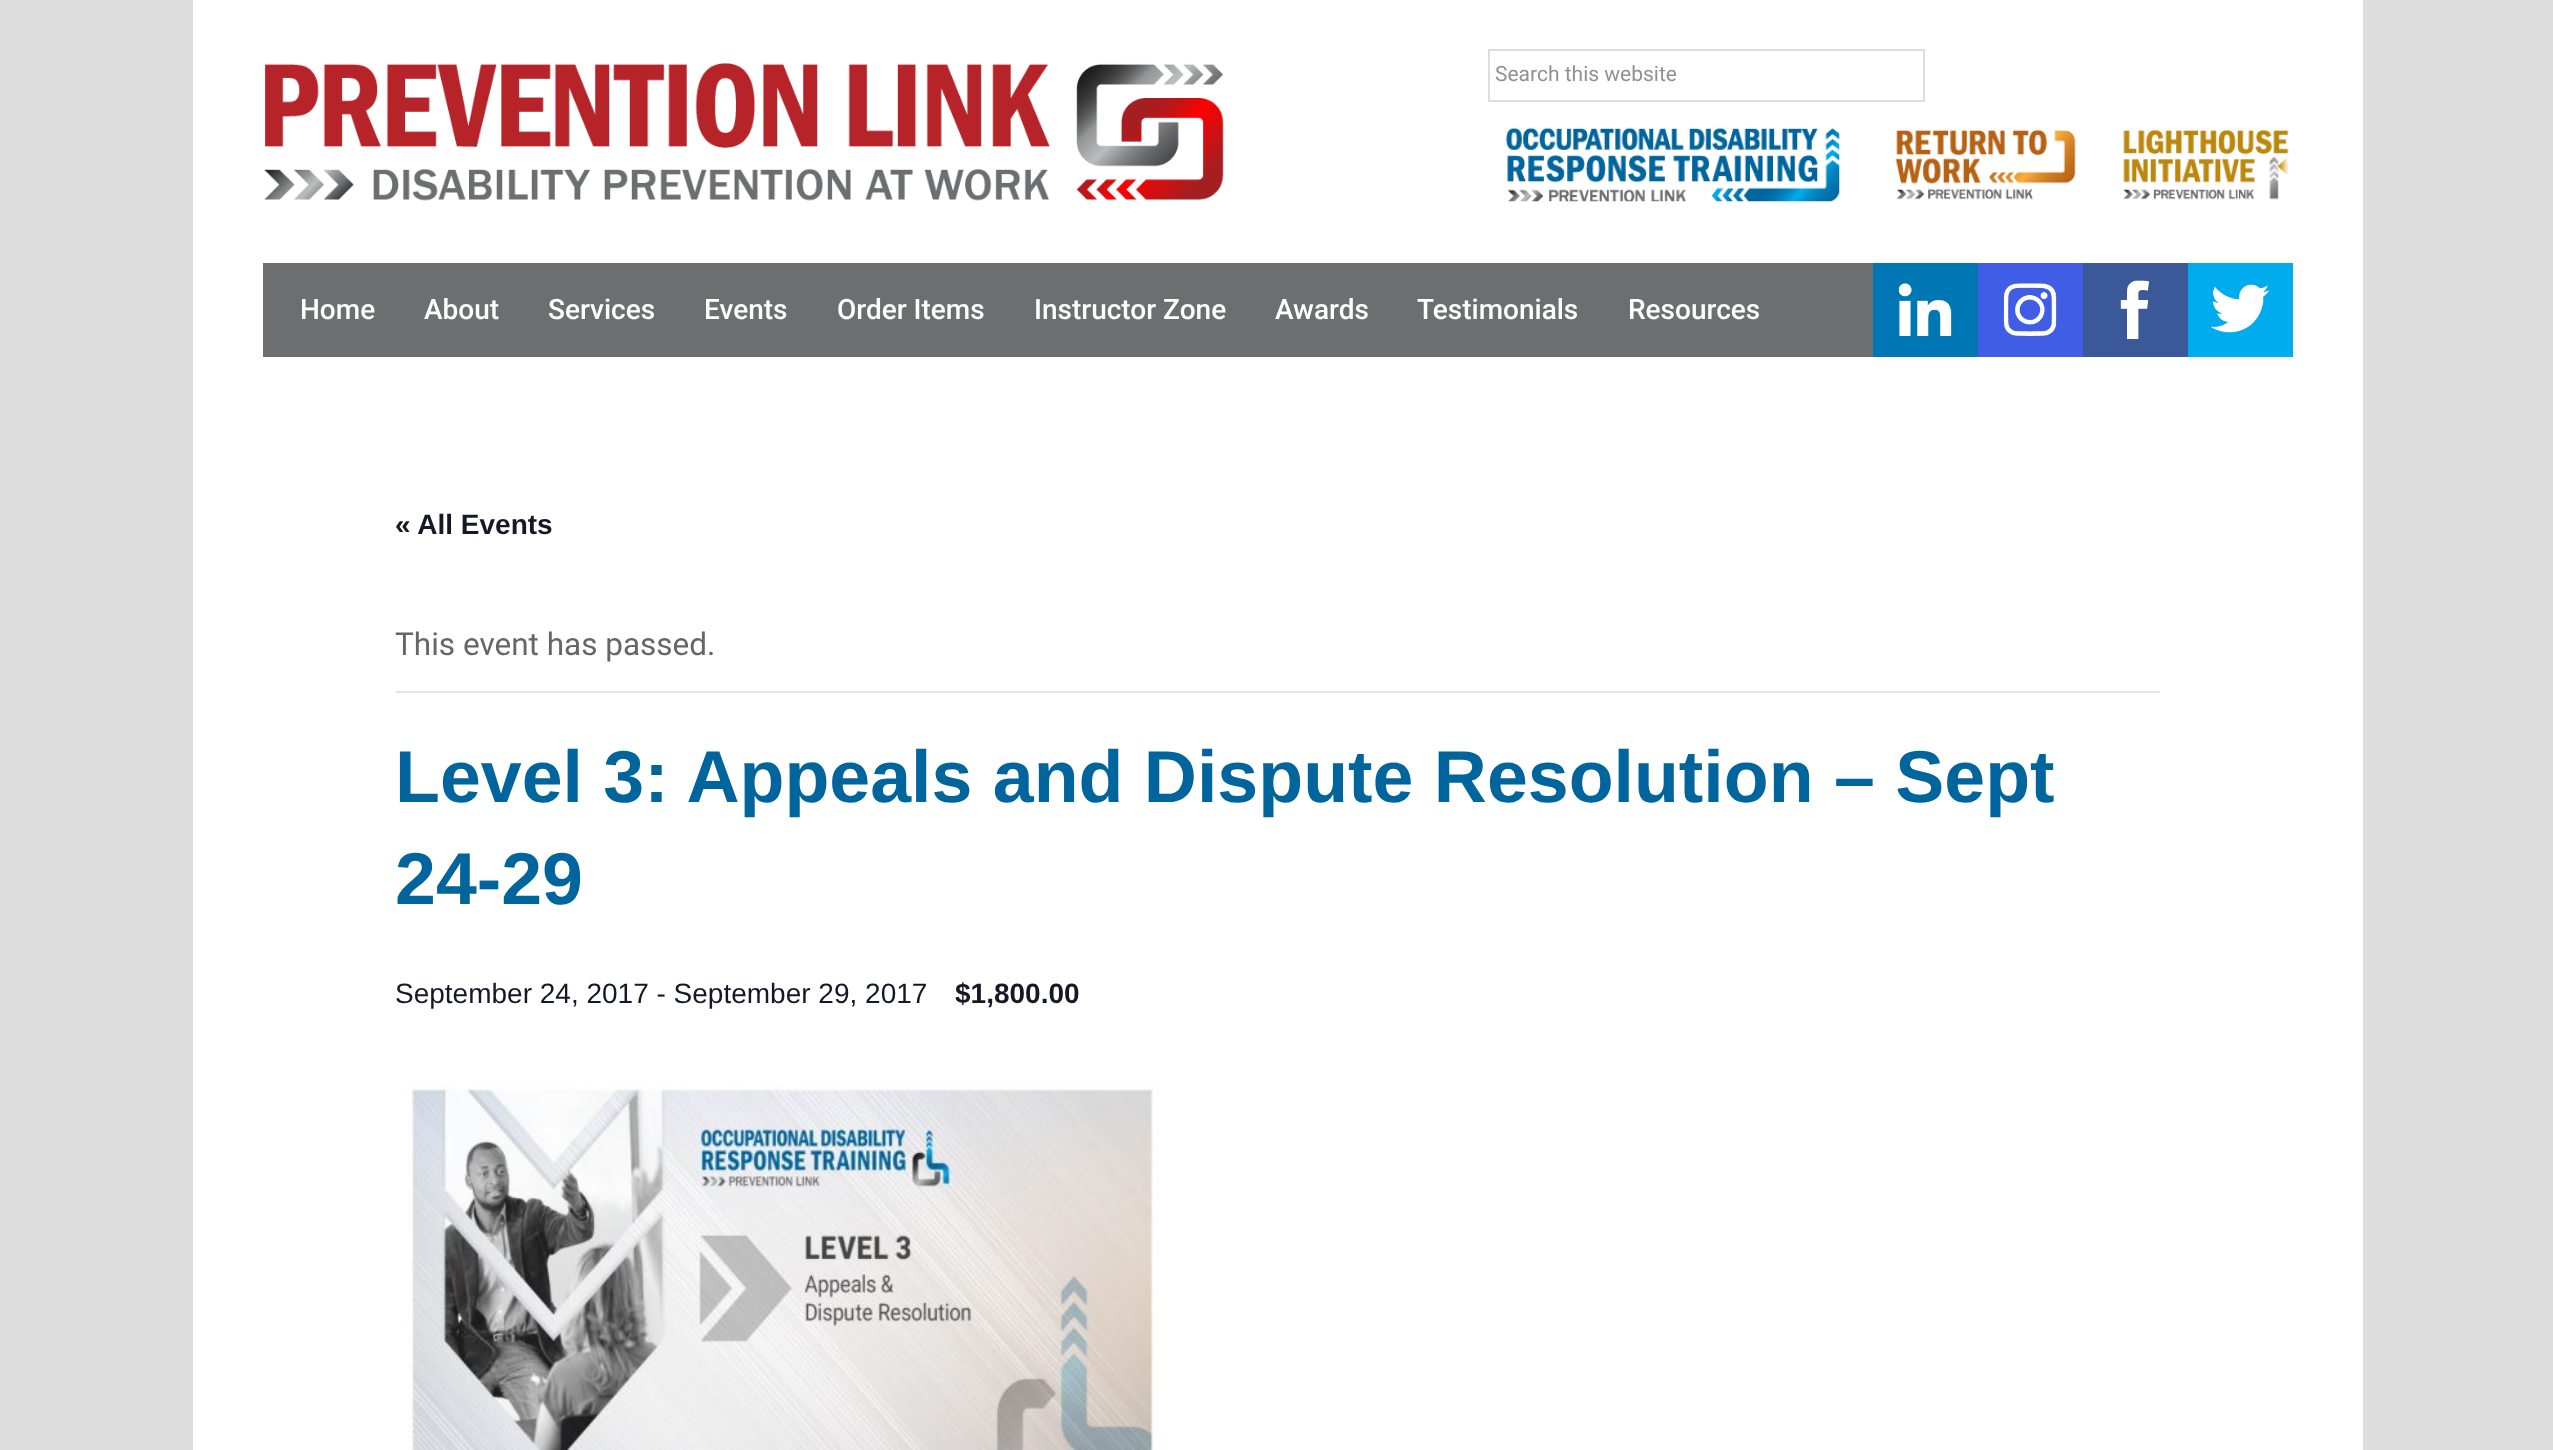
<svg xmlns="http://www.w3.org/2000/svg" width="2553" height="1450">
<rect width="100%" height="100%" fill="#ddd"/>
<rect x="193" width="2170" height="1450" fill="#fff"/>
<image x="264" y="63" width="960" height="138" href="media/1.png"/>
<rect x="1489" y="50" width="435" height="51" fill="none" stroke="#ddd" stroke-width="2"/>
<text x="1495" y="81" style="font-family:Roboto;font-size:21px;fill:#919191">Search this website</text>
<image x="1506" y="127" width="334" height="75" href="media/2.png"/>
<image x="1895" y="129" width="181" height="71" href="media/3.png"/>
<image x="2123" y="129" width="166" height="71" href="media/4.png"/>
<rect x="263" y="263" width="1610" height="94" fill="#6d6e70"/>
<text x="300" y="319" style="font-family:Roboto;font-size:28px;font-weight:500;fill:#fff">Home</text>
<text x="424" y="319" style="font-family:Roboto;font-size:28px;font-weight:500;fill:#fff">About</text>
<text x="548" y="319" style="font-family:Roboto;font-size:28px;font-weight:500;fill:#fff">Services</text>
<text x="704" y="319" style="font-family:Roboto;font-size:28px;font-weight:500;fill:#fff">Events</text>
<text x="837" y="319" style="font-family:Roboto;font-size:28px;font-weight:500;fill:#fff">Order Items</text>
<text x="1034" y="319" style="font-family:Roboto;font-size:28px;font-weight:500;fill:#fff">Instructor Zone</text>
<text x="1275" y="319" style="font-family:Roboto;font-size:28px;font-weight:500;fill:#fff">Awards</text>
<text x="1417" y="319" style="font-family:Roboto;font-size:28px;font-weight:500;fill:#fff">Testimonials</text>
<text x="1628" y="319" style="font-family:Roboto;font-size:28px;font-weight:500;fill:#fff">Resources</text>
<rect x="1873" y="263" width="105" height="94" fill="#0077b5"/>
<image x="1898" y="283" width="54" height="53" href="media/5.png"/>
<rect x="1978" y="263" width="105" height="94" fill="#405de6"/>
<image x="2003" y="283" width="54" height="53" href="media/6.png"/>
<rect x="2083" y="263" width="105" height="94" fill="#3b5998"/>
<image x="2120" y="280" width="30" height="59" href="media/7.png"/>
<rect x="2188" y="263" width="105" height="94" fill="#00aced"/>
<image x="2211" y="284" width="58" height="49" href="media/8.png"/>
<text x="395" y="534" style="font-family:Liberation Sans;font-size:28px;font-weight:bold;fill:#141827">« All Events</text>
<rect x="396" y="691" width="1764" height="2" fill="#e4e4e4"/>
<text x="395" y="655" style="font-family:Roboto;font-size:31.5px;fill:#666">This event has passed.</text>
<text x="395" y="802" style="font-family:Liberation Sans;font-size:73.5px;font-weight:bold;fill:#00659c">Level 3: Appeals and Dispute Resolution – Sept</text>
<text x="395" y="904" style="font-family:Liberation Sans;font-size:73.5px;font-weight:bold;fill:#00659c">24-29</text>
<text x="395" y="1003" style="font-family:Liberation Sans;font-size:28px;fill:#141827">September 24, 2017 - September 29, 2017</text>
<text x="955" y="1003" style="font-family:Liberation Sans;font-size:28px;font-weight:bold;fill:#141827">$1,800.00</text>
<image x="406" y="1084" width="753" height="366" href="media/9.png"/>
</svg>
